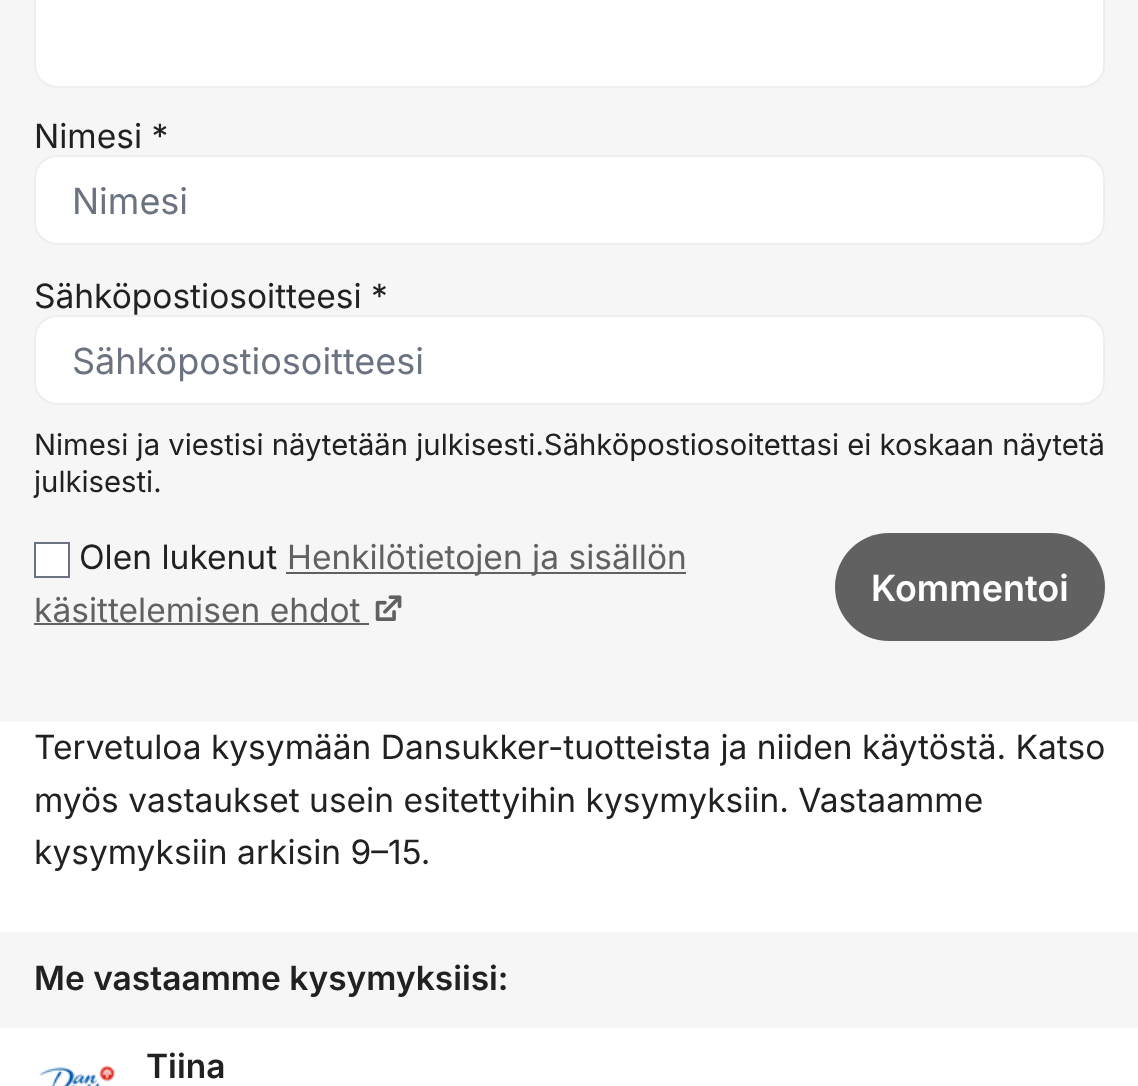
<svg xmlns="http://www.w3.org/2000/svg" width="1138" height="1086">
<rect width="100%" height="100%" fill="#fff"/>
<rect width="1138" height="722" fill="#f6f6f6"/>
<rect x="35" y="-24" width="1069" height="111" rx="22" fill="#fff" stroke="#eee" stroke-width="2"/>
<text x="34" y="148" style="font-family:Inter;font-size:33.5px;fill:#212121">Nimesi *</text>
<rect x="35" y="156" width="1069" height="88" rx="22" fill="#fff" stroke="#eee" stroke-width="2"/>
<text x="72" y="214" style="font-family:Inter;font-size:36px;fill:#6b7280">Nimesi</text>
<text x="34" y="308" style="font-family:Inter;font-size:33.5px;fill:#212121">Sähköpostiosoitteesi *</text>
<rect x="35" y="316" width="1069" height="88" rx="22" fill="#fff" stroke="#eee" stroke-width="2"/>
<text x="72" y="374" style="font-family:Inter;font-size:36px;fill:#6b7280">Sähköpostiosoitteesi</text>
<text x="34" y="455" style="font-family:Inter;font-size:29.25px;fill:#212121">Nimesi ja viestisi näytetään julkisesti.Sähköpostiosoitettasi ei koskaan näytetä</text>
<text x="34" y="492" style="font-family:Inter;font-size:29.25px;fill:#212121">julkisesti.</text>
<rect x="35" y="543" width="34" height="34" fill="#fff" stroke="#6b7280" stroke-width="2"/>
<rect x="286" y="572" width="400" height="2" fill="#616161"/>
<text x="287" y="569" style="font-family:Inter;font-size:33.5px;fill:#616161">Henkilötietojen ja sisällön</text>
<text x="34" y="622" style="font-family:Inter;font-size:33.5px;fill:#616161">käsittelemisen ehdot</text>
<rect x="34" y="623" width="335" height="2" fill="#616161"/>
<image x="375" y="595" width="27" height="26" href="media/1.png"/>
<text x="79" y="569" style="font-family:Inter;font-size:33.5px;fill:#212121">Olen lukenut</text>
<rect x="835" y="533" width="270" height="108" rx="54" fill="#616161"/>
<text x="871" y="601" style="font-family:Inter;font-size:36px;font-weight:600;fill:#fff">Kommentoi</text>
<text x="34" y="759" style="font-family:Inter;font-size:33.5px;fill:#212121">Tervetuloa kysymään Dansukker-tuotteista ja niiden käytöstä. Katso</text>
<text x="34" y="812" style="font-family:Inter;font-size:33.5px;fill:#212121">myös vastaukset usein esitettyihin kysymyksiin. Vastaamme</text>
<text x="34" y="864" style="font-family:Inter;font-size:33.5px;fill:#212121">kysymyksiin arkisin 9–15.</text>
<rect y="932" width="1138" height="96" fill="#f6f6f6"/>
<text x="34" y="990" style="font-family:Inter;font-size:33.5px;font-weight:600;fill:#212121">Me vastaamme kysymyksiisi:</text>
<image x="39" y="1065" width="76" height="21" href="media/2.png"/>
<text x="146" y="1078" style="font-family:Inter;font-size:33.5px;font-weight:600;fill:#212121">Tiina</text>
</svg>
